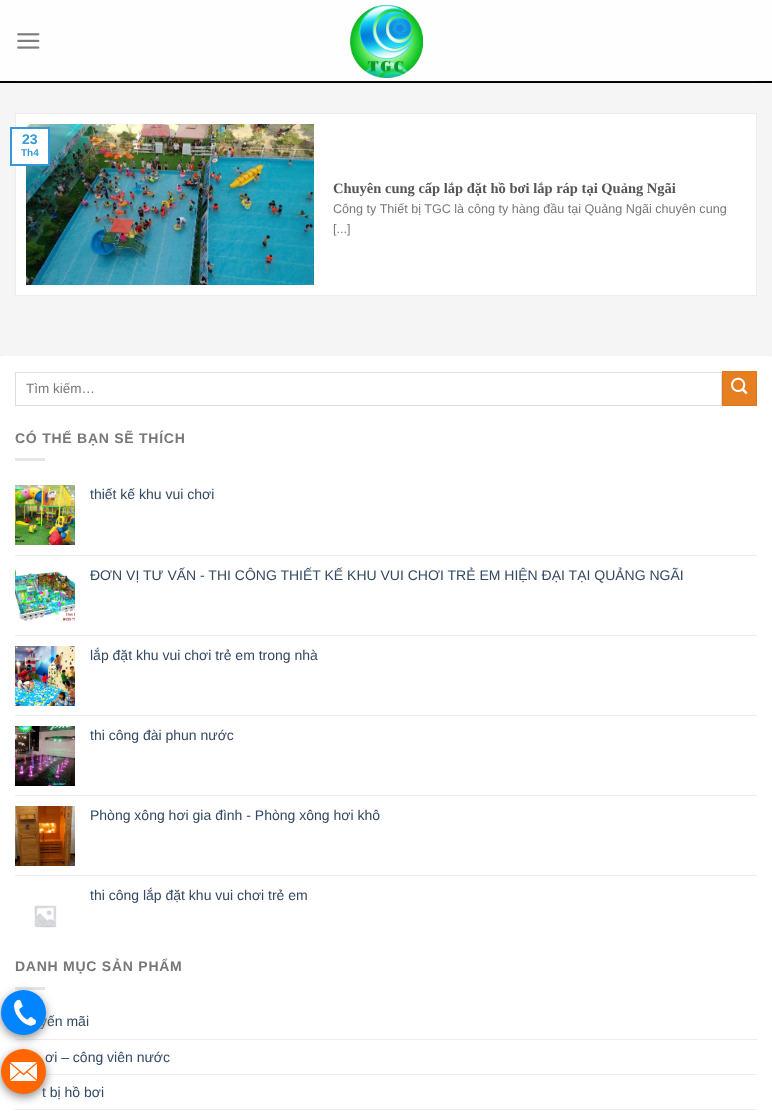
<svg xmlns="http://www.w3.org/2000/svg" width="772" height="1118">
<rect width="100%" height="100%" fill="#f5f5f5"/>
<rect width="772" height="81" fill="#fefefe"/>
<rect y="81" width="772" height="2" fill="#000"/>
<image x="17" y="33" width="23" height="16" href="media/1.png"/>
<image x="350" y="5" width="73" height="73" href="media/2.png"/>
<rect x="15" y="81" width="742" height="1" fill="#0c0c0c"/>
<rect x="15.5" y="113.5" width="741" height="182" fill="#fff" stroke="#ececec"/>
<image x="26" y="124" width="288" height="161" href="media/3.png"/>
<rect x="11" y="128" width="38" height="37" fill="#fff" stroke="#3498db" stroke-width="2"/>
<text x="22" y="144" style="font-family:Liberation Sans;font-size:14px;font-weight:bold;fill:#3498db">23</text>
<text x="21" y="156" style="font-family:Liberation Sans;font-size:10px;font-weight:bold;fill:#3498db">Th4</text>
<text x="333" y="193" style="font-family:Liberation Serif;font-size:14.5px;font-weight:bold;fill:#555">Chuyên cung cấp lắp đặt hồ bơi lắp ráp tại Quảng Ngãi</text>
<text x="333" y="213" style="font-family:Liberation Sans;font-size:12.6px;fill:#777">Công ty Thiết bị TGC là công ty hàng đầu tại Quảng Ngãi chuyên cung</text>
<text x="333" y="233" style="font-family:Liberation Sans;font-size:12.6px;fill:#777">[...]</text>
<rect y="356" width="772" height="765" rx="3" fill="#fff"/>
<rect x="15.5" y="372.5" width="706" height="33" fill="none" stroke="#ddd"/>
<text x="26" y="393" style="font-family:Liberation Sans;font-size:13.5px;fill:#777">Tìm kiếm…</text>
<rect x="722.5" y="371.5" width="34" height="34" fill="#e67e22" stroke="#db7820"/>
<image x="731" y="377" width="17" height="17" href="media/4.png"/>
<text x="15" y="443" style="font-family:Liberation Sans;font-size:14px;font-weight:bold;letter-spacing:0.75px;fill:#777">CÓ THỂ BẠN SẼ THÍCH</text>
<rect x="15" y="458" width="30" height="3" fill="#e6e6e6"/>
<image x="15" y="485" width="60" height="60" href="media/5.png"/>
<text x="90" y="499" style="font-family:Liberation Sans;font-size:14px;fill:#334862">thiết kế khu vui chơi</text>
<rect x="15" y="555" width="742" height="1" fill="#ececec"/>
<image x="15" y="570" width="60" height="51" href="media/6.png"/>
<text x="90" y="580" style="font-family:Liberation Sans;font-size:14px;fill:#334862">ĐƠN VỊ TƯ VẤN - THI CÔNG THIẾT KẾ KHU VUI CHƠI TRẺ EM HIỆN ĐẠI TẠI QUẢNG NGÃI</text>
<rect x="15" y="635" width="742" height="1" fill="#ececec"/>
<image x="15" y="646" width="60" height="60" href="media/7.png"/>
<text x="90" y="660" style="font-family:Liberation Sans;font-size:14px;fill:#334862">lắp đặt khu vui chơi trẻ em trong nhà</text>
<rect x="15" y="715" width="742" height="1" fill="#ececec"/>
<image x="15" y="726" width="60" height="60" href="media/8.png"/>
<text x="90" y="740" style="font-family:Liberation Sans;font-size:14px;fill:#334862">thi công đài phun nước</text>
<rect x="15" y="795" width="742" height="1" fill="#ececec"/>
<image x="15" y="806" width="60" height="60" href="media/9.png"/>
<text x="90" y="820" style="font-family:Liberation Sans;font-size:14px;fill:#334862">Phòng xông hơi gia đình - Phòng xông hơi khô</text>
<rect x="15" y="875" width="742" height="1" fill="#ececec"/>
<text x="90" y="900" style="font-family:Liberation Sans;font-size:14px;fill:#334862">thi công lắp đặt khu vui chơi trẻ em</text>
<image x="34" y="905" width="23" height="23" href="media/10.png"/>
<text x="15" y="971" style="font-family:Liberation Sans;font-size:14px;font-weight:bold;letter-spacing:0.75px;fill:#777">DANH MỤC SẢN PHẨM</text>
<rect x="15" y="987" width="30" height="3" fill="#e6e6e6"/>
<text x="40" y="1026" style="font-family:Liberation Sans;font-size:14px;fill:#334862">yến mãi</text>
<rect x="15" y="1039" width="742" height="1" fill="#ececec"/>
<text x="45" y="1062" style="font-family:Liberation Sans;font-size:14px;fill:#334862">ơi – công viên nước</text>
<rect x="45" y="1074" width="712" height="1" fill="#ececec"/>
<text x="42" y="1097" style="font-family:Liberation Sans;font-size:14px;fill:#334862">t bị hồ bơi</text>
<rect x="15" y="1109" width="742" height="1" fill="#ececec"/>
<rect x="1" y="993" width="45" height="45" rx="22.5" fill="#888" filter="blur(5px)"/>
<circle cx="23.5" cy="1012.5" r="22.5" fill="#0084ff"/>
<image x="13" y="999" width="23" height="27" href="media/11.png"/>
<rect x="1" y="1052" width="45" height="45" rx="22.5" fill="#888" filter="blur(5px)"/>
<circle cx="23.5" cy="1071.5" r="22.5" fill="#f60"/>
<image x="10" y="1062" width="27" height="19" href="media/12.png"/>
</svg>
